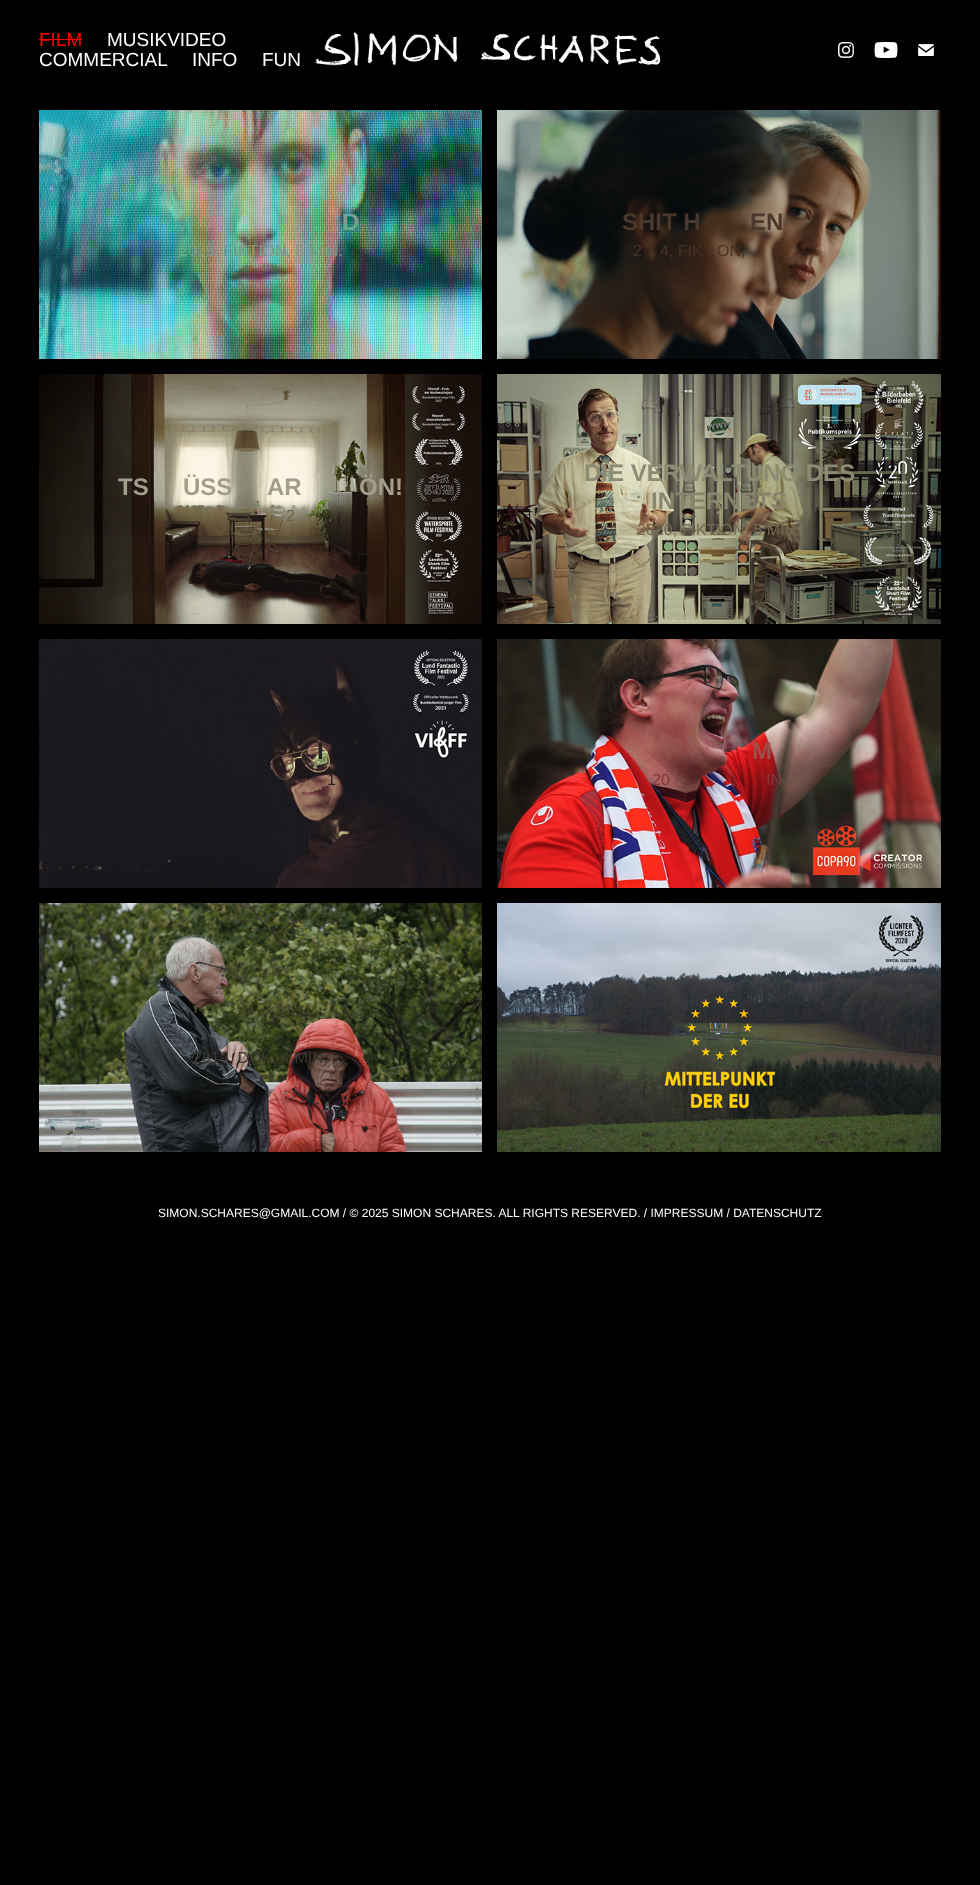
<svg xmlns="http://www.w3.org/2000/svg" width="980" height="1885">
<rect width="100%" height="100%" fill="#000"/>
<text x="39" y="46" style="font-family:Liberation Sans;font-size:19px;fill:#f00">FILM</text>
<rect x="39" y="39" width="43" height="1" fill="#f00"/>
<text x="107" y="46" style="font-family:Liberation Sans;font-size:19px;fill:#fff">MUSIKVIDEO</text>
<text x="39" y="66" style="font-family:Liberation Sans;font-size:19px;fill:#fff">COMMERCIAL</text>
<text x="192" y="66" style="font-family:Liberation Sans;font-size:19px;fill:#fff">INFO</text>
<text x="262" y="66" style="font-family:Liberation Sans;font-size:19px;fill:#fff">FUN</text>
<image x="315" y="32" width="346" height="34" href="media/1.png"/>
<image x="838" y="42" width="16" height="16" href="media/2.png"/>
<image x="874" y="42" width="24" height="16" href="media/3.png"/>
<image x="918" y="44" width="16" height="12" href="media/4.png"/>
<image x="39" y="110" width="443" height="249" href="media/5.png"/>
<text x="342" y="230" style="font-family:Liberation Sans;font-size:24px;font-weight:bold;fill:#7c9e8d">D</text>
<text x="179" y="256" style="font-family:Liberation Sans;font-size:16px;fill:#779a85">2025, FIKTION, 8 MIN.</text>
<image x="497" y="110" width="444" height="249" href="media/6.png"/>
<text x="622" y="230" style="font-family:Liberation Sans;font-size:24px;font-weight:bold;fill:#49382b">SHIT H</text>
<text x="750" y="230" style="font-family:Liberation Sans;font-size:24px;font-weight:bold;fill:#49382b">EN</text>
<text x="633" y="256" style="font-family:Liberation Sans;font-size:16px;fill:#473224">2</text>
<text x="660" y="256" style="font-family:Liberation Sans;font-size:16px;fill:#473224">4, FIK</text>
<text x="717" y="256" style="font-family:Liberation Sans;font-size:16px;fill:#473224">ON,</text>
<image x="39" y="374" width="443" height="250" href="media/7.png"/>
<text x="118" y="495" style="font-family:Liberation Sans;font-size:24px;font-weight:bold;fill:#a39d8c">TS</text>
<text x="183" y="495" style="font-family:Liberation Sans;font-size:24px;font-weight:bold;fill:#a39d8c">ÜSS</text>
<text x="267" y="495" style="font-family:Liberation Sans;font-size:24px;font-weight:bold;fill:#a39d8c">AR</text>
<text x="359" y="495" style="font-family:Liberation Sans;font-size:24px;font-weight:bold;fill:#a39d8c">ÖN!</text>
<text x="286" y="521" style="font-family:Liberation Sans;font-size:16px;fill:#696249">2</text>
<text x="328" y="521" style="font-family:Liberation Sans;font-size:16px;fill:#696249">.</text>
<image x="497" y="374" width="444" height="250" href="media/8.png"/>
<text x="584" y="481" style="font-family:Liberation Sans;font-size:24px;font-weight:bold;fill:#8c8b73">DIE VERWALTUNG DES</text>
<text x="651" y="509" style="font-family:Liberation Sans;font-size:24px;font-weight:bold;fill:#89856d">INTERNETS</text>
<text x="637" y="535" style="font-family:Liberation Sans;font-size:16px;fill:#746954">2020, FIKTION, 5 MIN.</text>
<image x="39" y="639" width="443" height="249" href="media/9.png"/>
<text x="317" y="759" style="font-family:Liberation Sans;font-size:24px;font-weight:bold;fill:#252123">I</text>
<text x="327" y="785" style="font-family:Liberation Sans;font-size:16px;fill:#252123">1</text>
<image x="497" y="639" width="444" height="249" href="media/10.png"/>
<text x="752" y="759" style="font-family:Liberation Sans;font-size:24px;font-weight:bold;fill:#9e504d">M</text>
<text x="652" y="785" style="font-family:Liberation Sans;font-size:16px;fill:#86383e">20</text>
<text x="766" y="785" style="font-family:Liberation Sans;font-size:16px;fill:#86383e">IN</text>
<text x="731" y="785" style="font-family:Liberation Sans;font-size:16px;fill:#86383e">,</text>
<image x="39" y="903" width="443" height="249" href="media/11.png"/>
<text x="192" y="1009" style="font-family:Liberation Sans;font-size:24px;font-weight:bold;fill:#454c2f">,</text>
<text x="193" y="1063" style="font-family:Liberation Sans;font-size:16px;fill:#3b372e">2019, DOK, 4 MIN.</text>
<image x="497" y="903" width="444" height="249" href="media/12.png"/>
<text x="158" y="1217" style="font-family:Liberation Sans;font-size:12px;fill:#fff">SIMON.SCHARES@GMAIL.COM / © 2025 SIMON SCHARES. ALL RIGHTS RESERVED. / IMPRESSUM / DATENSCHUTZ</text>
</svg>
